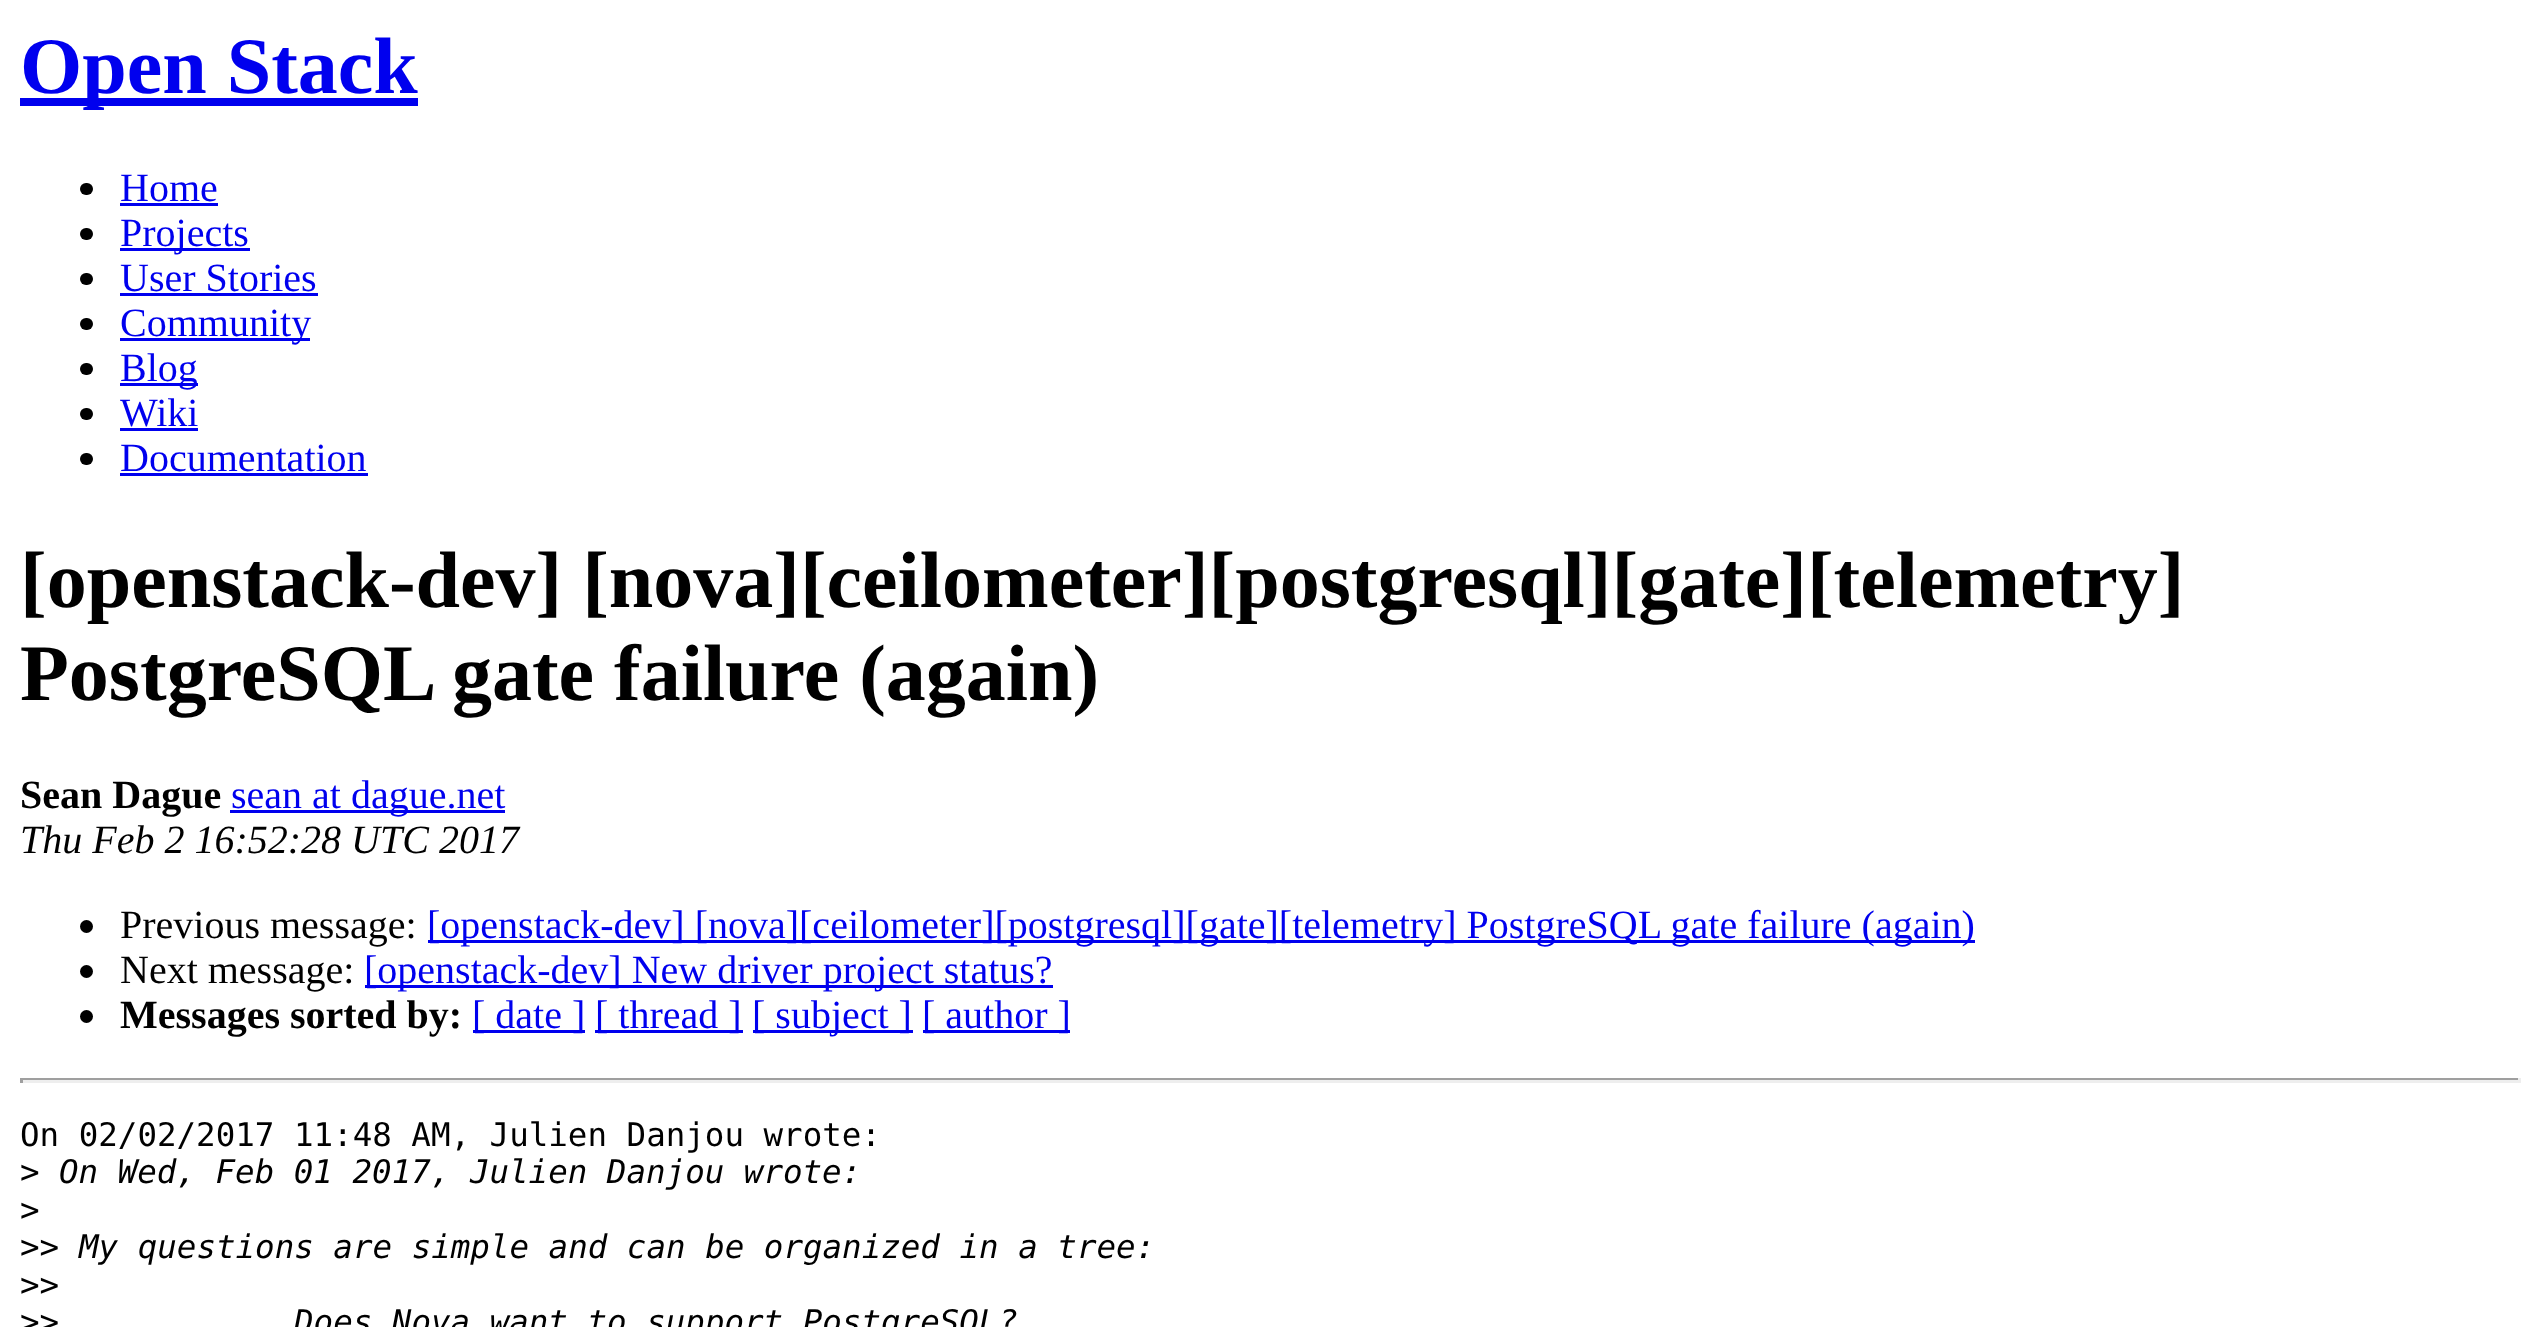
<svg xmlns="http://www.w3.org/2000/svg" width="2538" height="1327">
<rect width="100%" height="100%" fill="#fff"/>
<rect x="20" y="98" width="398" height="8" fill="#00e"/>
<text x="20" y="93" style="font-family:Liberation Serif;font-size:80px;font-weight:bold;fill:#00e">Open Stack</text>
<rect x="80" y="183" width="13" height="12" rx="6" fill="#000"/>
<text x="120" y="201" style="font-family:Liberation Serif;font-size:40px;fill:#00e">Home</text>
<rect x="120" y="203" width="98" height="3" fill="#00e"/>
<rect x="80" y="228" width="13" height="12" rx="6" fill="#000"/>
<rect x="120" y="248" width="130" height="3" fill="#00e"/>
<text x="120" y="246" style="font-family:Liberation Serif;font-size:40px;fill:#00e">Projects</text>
<rect x="80" y="273" width="13" height="12" rx="6" fill="#000"/>
<text x="120" y="291" style="font-family:Liberation Serif;font-size:40px;fill:#00e">User Stories</text>
<rect x="120" y="293" width="198" height="3" fill="#00e"/>
<rect x="80" y="318" width="13" height="12" rx="6" fill="#000"/>
<rect x="120" y="338" width="190" height="3" fill="#00e"/>
<text x="120" y="336" style="font-family:Liberation Serif;font-size:40px;fill:#00e">Community</text>
<rect x="80" y="363" width="13" height="12" rx="6" fill="#000"/>
<rect x="120" y="383" width="78" height="3" fill="#00e"/>
<text x="120" y="381" style="font-family:Liberation Serif;font-size:40px;fill:#00e">Blog</text>
<rect x="80" y="408" width="13" height="12" rx="6" fill="#000"/>
<text x="120" y="426" style="font-family:Liberation Serif;font-size:40px;fill:#00e">Wiki</text>
<rect x="120" y="428" width="78" height="3" fill="#00e"/>
<rect x="80" y="453" width="13" height="12" rx="6" fill="#000"/>
<text x="120" y="471" style="font-family:Liberation Serif;font-size:40px;fill:#00e">Documentation</text>
<rect x="120" y="473" width="248" height="3" fill="#00e"/>
<text x="20" y="607" style="font-family:Liberation Serif;font-size:80px;font-weight:bold;fill:#000">[openstack-dev] [nova][ceilometer][postgresql][gate][telemetry]</text>
<text x="20" y="700" style="font-family:Liberation Serif;font-size:80px;font-weight:bold;fill:#000">PostgreSQL gate failure (again)</text>
<text x="20" y="808" style="font-family:Liberation Serif;font-size:40px;font-weight:bold;fill:#000">Sean Dague</text>
<rect x="230" y="810" width="275" height="3" fill="#00e"/>
<text x="231" y="808" style="font-family:Liberation Serif;font-size:40px;fill:#00e">sean at dague.net</text>
<text x="20" y="853" style="font-family:Liberation Serif;font-size:40px;font-style:italic;fill:#000">Thu Feb 2 16:52:28 UTC 2017</text>
<circle cx="86.5" cy="926.5" r="6.5" fill="#000"/>
<text x="120" y="938" style="font-family:Liberation Serif;font-size:40px;fill:#000">Previous message:</text>
<rect x="428" y="940" width="1547" height="3" fill="#00e"/>
<text x="427" y="938" style="font-family:Liberation Serif;font-size:40px;fill:#00e">[openstack-dev] [nova][ceilometer][postgresql][gate][telemetry] PostgreSQL gate failure (again)</text>
<circle cx="86.5" cy="971.5" r="6.5" fill="#000"/>
<text x="120" y="983" style="font-family:Liberation Serif;font-size:40px;fill:#000">Next message:</text>
<rect x="365" y="985" width="688" height="3" fill="#00e"/>
<text x="364" y="983" style="font-family:Liberation Serif;font-size:40px;fill:#00e">[openstack-dev] New driver project status?</text>
<circle cx="86.5" cy="1016.5" r="6.5" fill="#000"/>
<text x="120" y="1028" style="font-family:Liberation Serif;font-size:40px;font-weight:bold;fill:#000">Messages sorted by:</text>
<rect x="473" y="1030" width="112" height="3" fill="#00e"/>
<text x="472" y="1028" style="font-family:Liberation Serif;font-size:40px;fill:#00e">[ date ]</text>
<rect x="595" y="1030" width="148" height="3" fill="#00e"/>
<text x="595" y="1028" style="font-family:Liberation Serif;font-size:40px;fill:#00e">[ thread ]</text>
<rect x="753" y="1030" width="160" height="3" fill="#00e"/>
<text x="752" y="1028" style="font-family:Liberation Serif;font-size:40px;fill:#00e">[ subject ]</text>
<rect x="923" y="1030" width="147" height="3" fill="#00e"/>
<text x="922" y="1028" style="font-family:Liberation Serif;font-size:40px;fill:#00e">[ author ]</text>
<rect x="20" y="1078" width="2500" height="2" fill="#9f9f9f"/>
<rect x="2518" y="1078" width="3" height="5" fill="#eee"/>
<rect x="20" y="1080" width="2500" height="3" fill="#eee"/>
<rect x="20" y="1078" width="3" height="5" fill="#9f9f9f"/>
<text x="20" y="1146" style="font-family:DejaVu Sans Mono;font-size:32.5px;fill:#000">On 02/02/2017 11:48 AM, Julien Danjou wrote:</text>
<text x="20" y="1183" style="font-family:DejaVu Sans Mono;font-size:32.5px;fill:#000">&gt;</text>
<text x="59" y="1183" style="font-family:DejaVu Sans Mono;font-size:32.5px;font-style:italic;fill:#000">On Wed, Feb 01 2017, Julien Danjou wrote:</text>
<text x="20" y="1221" style="font-family:DejaVu Sans Mono;font-size:32.5px;fill:#000">&gt;</text>
<text x="20" y="1258" style="font-family:DejaVu Sans Mono;font-size:32.5px;fill:#000">&gt;&gt;</text>
<text x="79" y="1258" style="font-family:DejaVu Sans Mono;font-size:32.5px;font-style:italic;fill:#000">My questions are simple and can be organized in a tree:</text>
<text x="20" y="1296" style="font-family:DejaVu Sans Mono;font-size:32.5px;fill:#000">&gt;&gt;</text>
<text x="20" y="1333" style="font-family:DejaVu Sans Mono;font-size:32.5px;fill:#000">&gt;&gt;</text>
<text x="294" y="1333" style="font-family:DejaVu Sans Mono;font-size:32.5px;font-style:italic;fill:#000">Does Nova want to support PostgreSQL?</text>
</svg>
